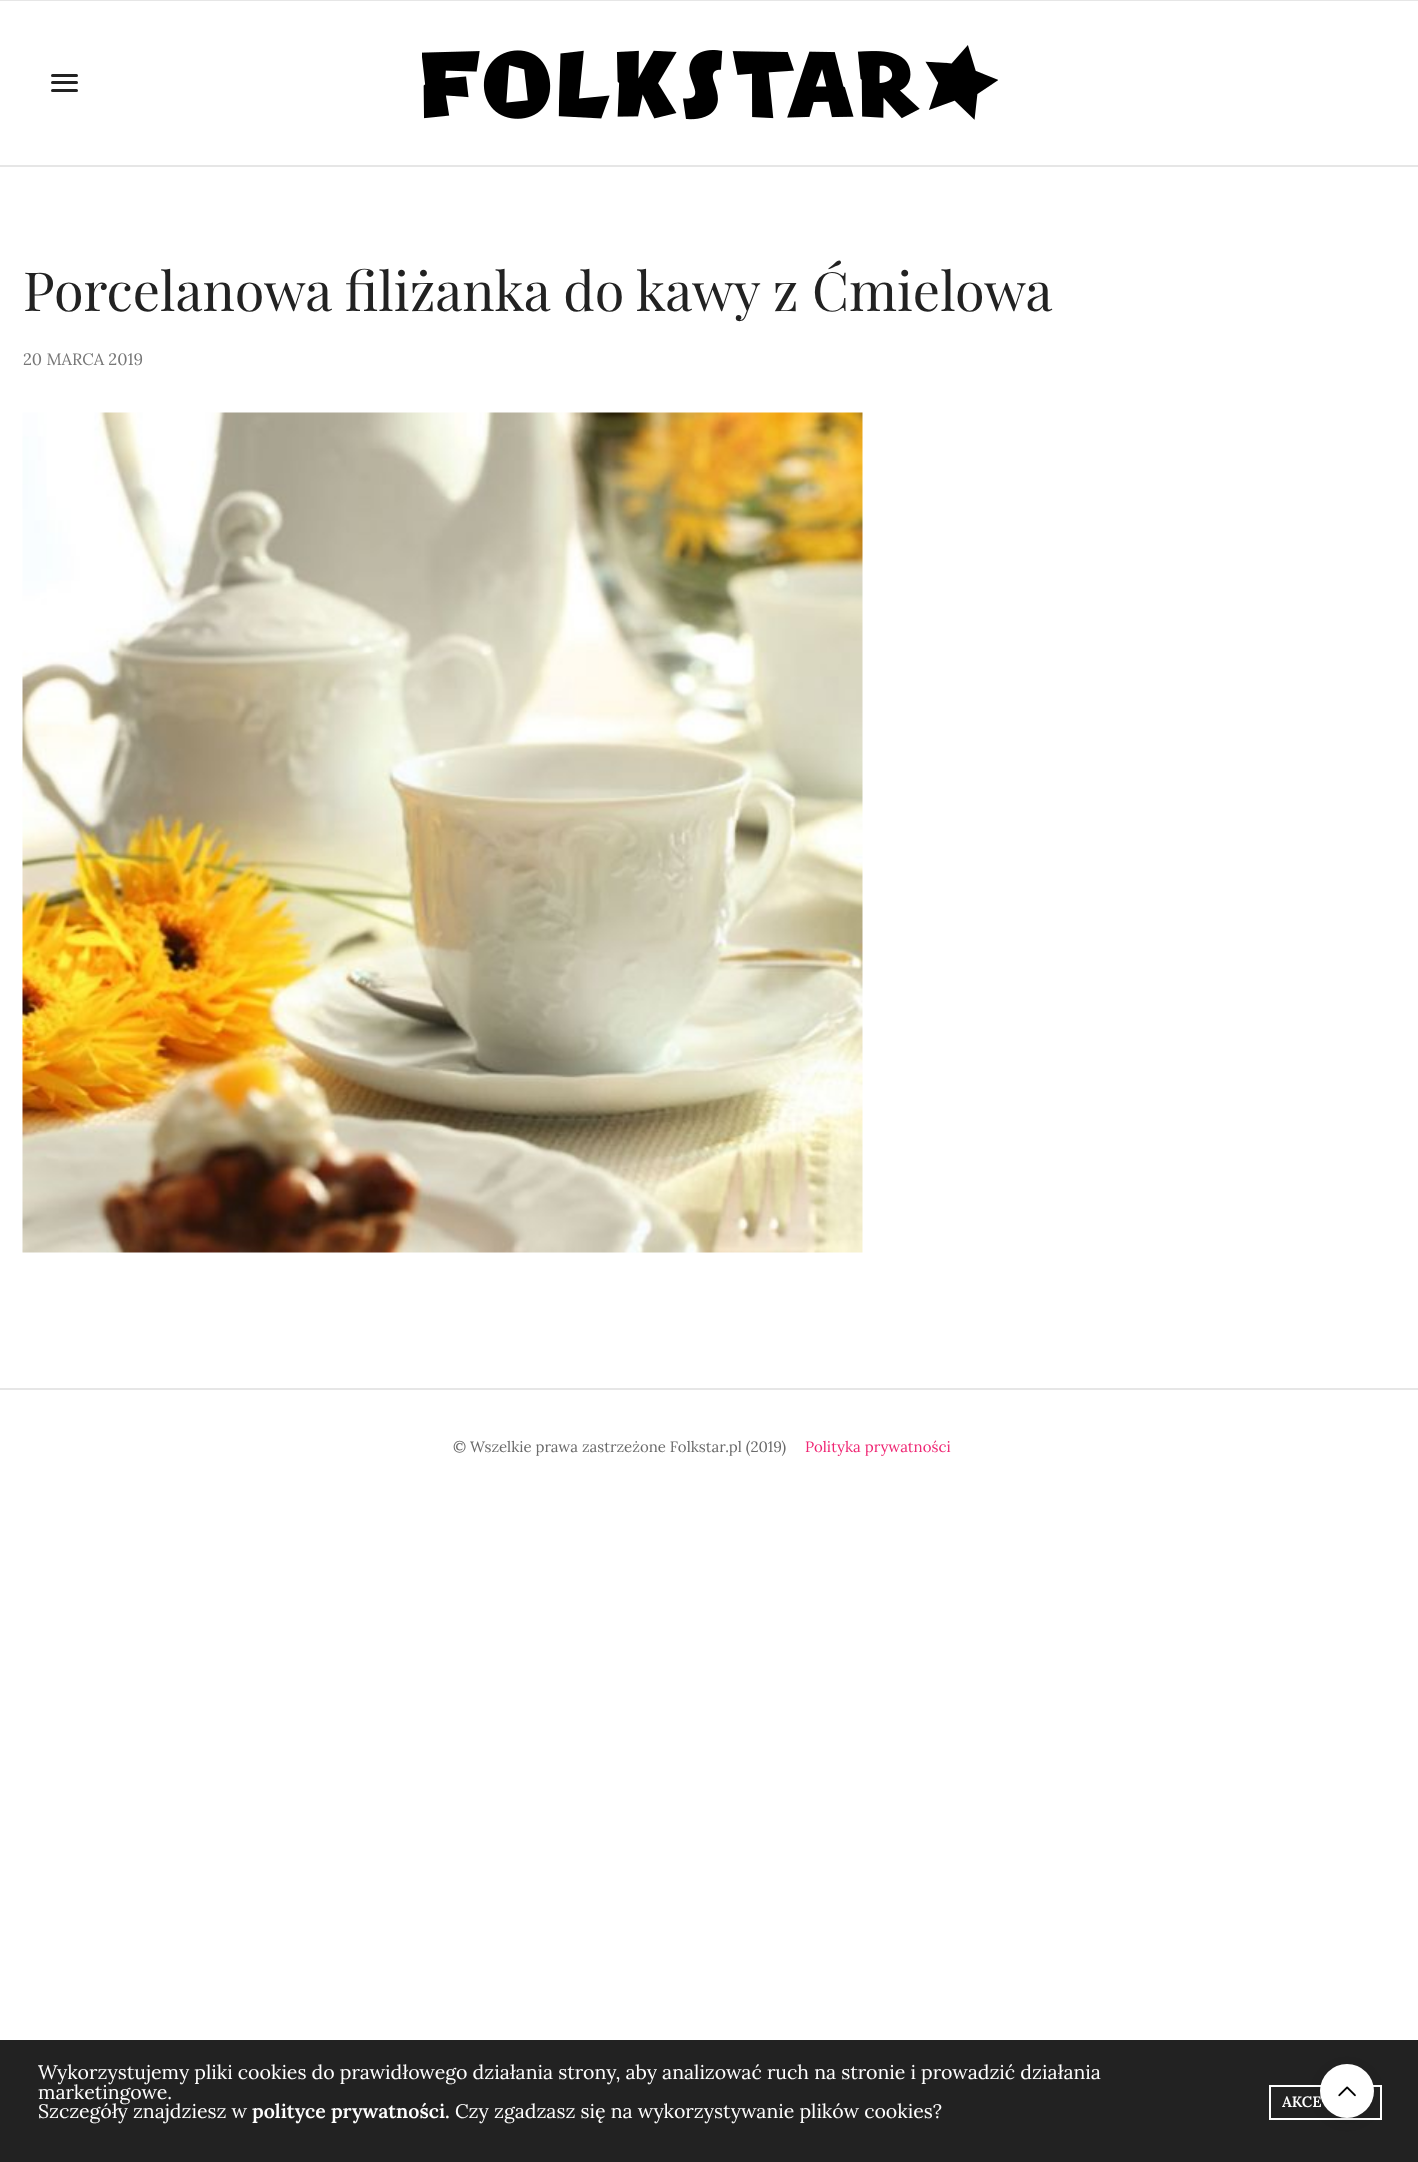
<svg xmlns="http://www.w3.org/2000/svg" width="1418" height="2162">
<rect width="100%" height="100%" fill="#fff"/>
<rect width="1418" height="1" fill="#e6e6e6"/>
<rect y="165" width="1418" height="2" fill="#e6e6e6"/>
<rect x="51" y="74" width="27" height="3" rx="1.5" fill="#222"/>
<rect x="51" y="81" width="27" height="3" rx="1.5" fill="#222"/>
<rect x="51" y="89" width="27" height="3" rx="1.5" fill="#222"/>
<image x="422" y="45" width="576" height="75" href="media/1.png"/>
<text x="23" y="311" style="font-family:Playfair Display;font-size:54px;fill:#222">Porcelanowa filiżanka do kawy z Ćmielowa</text>
<text x="23" y="365" style="font-family:Lora;font-size:16.5px;fill:#767676">20 MARCA 2019</text>
<image x="22" y="412" width="841" height="841" href="media/2.png"/>
<rect y="1388" width="1418" height="2" fill="#e6e6e6"/>
<text x="453" y="1452" style="font-family:Lora;font-size:15px;fill:#6a6a6a">© Wszelkie prawa zastrzeżone Folkstar.pl (2019)</text>
<text x="805" y="1452" style="font-family:Lora;font-size:15px;fill:#ef2673">Polityka prywatności</text>
<rect y="2040" width="1418" height="122" fill="#222"/>
<text x="38" y="2079" style="font-family:Lora;font-size:19.5px;fill:#fff">Wykorzystujemy pliki cookies do prawidłowego działania strony, aby analizować ruch na stronie i prowadzić działania</text>
<text x="38" y="2099" style="font-family:Lora;font-size:19.5px;fill:#fff">marketingowe.</text>
<text x="38" y="2118" style="font-family:Lora;font-size:19.5px;fill:#fff">Szczegóły znajdziesz w</text>
<text x="252" y="2118" style="font-family:Lora;font-size:19.5px;font-weight:600;fill:#fff">polityce prywatności.</text>
<text x="455" y="2118" style="font-family:Lora;font-size:19.5px;fill:#fff">Czy zgadzasz się na wykorzystywanie plików cookies?</text>
<rect x="1270" y="2086" width="111" height="33" fill="none" stroke="#fff" stroke-width="2"/>
<text x="1282" y="2107" style="font-family:Lora;font-size:15px;font-weight:600;fill:#fff">AKCE</text>
<rect x="1320" y="2067" width="54" height="54" rx="27" fill="#0000001a" filter="blur(6px)"/>
<circle cx="1347" cy="2091" r="27" fill="#fff"/>
<image x="1338" y="2086" width="18" height="11" href="media/3.png"/>
</svg>
